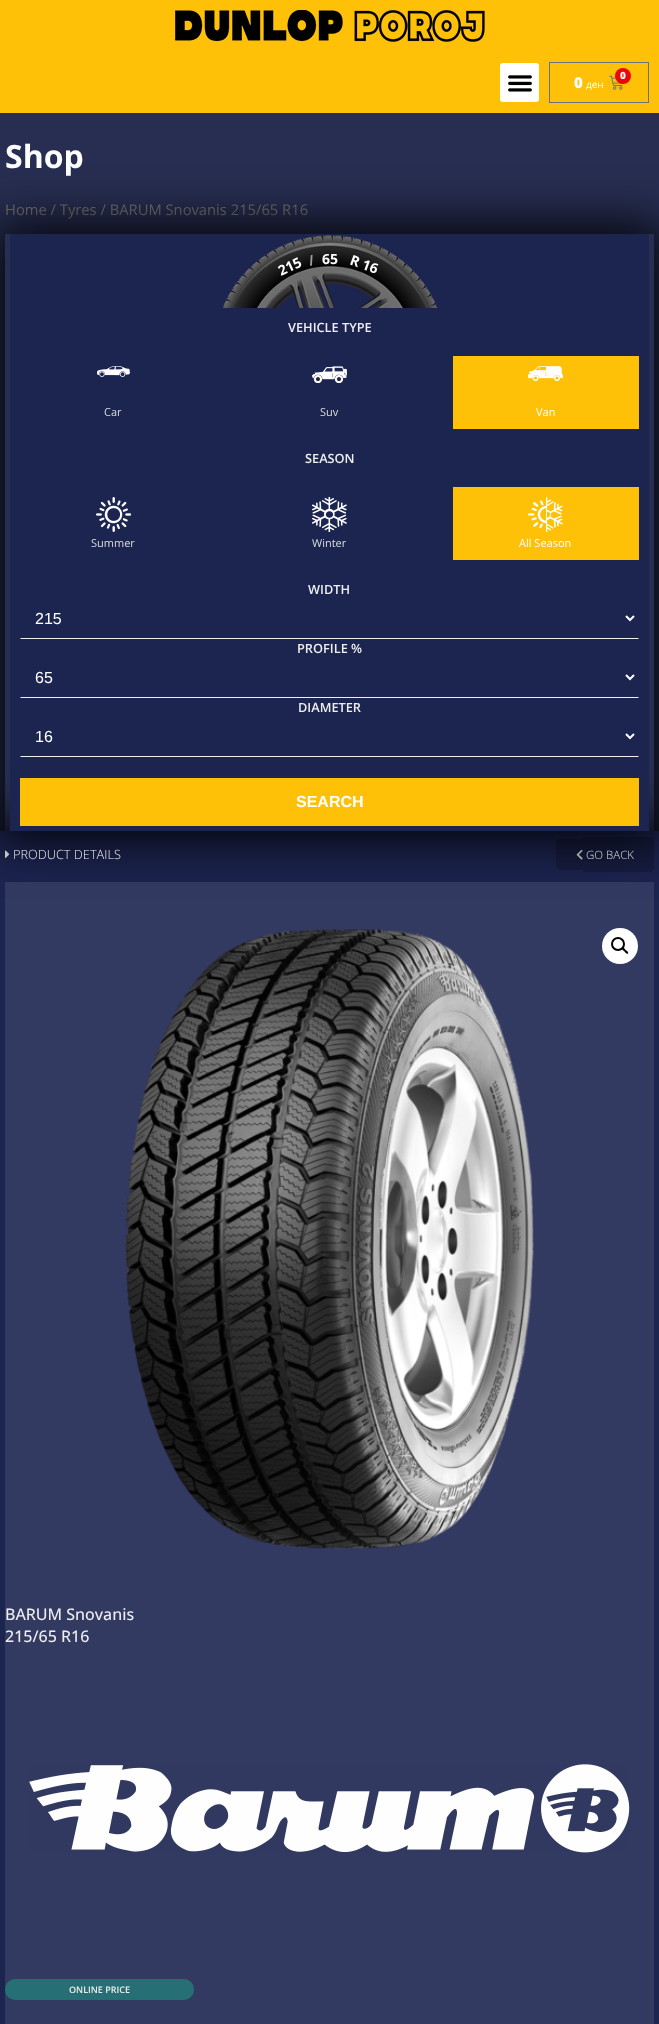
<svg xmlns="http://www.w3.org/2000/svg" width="659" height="2024">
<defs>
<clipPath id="clip1"><path d="M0 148h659v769h-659zm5 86h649v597h-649z" clip-rule="evenodd"/></clipPath>
</defs>
<rect width="100%" height="100%" fill="#272e52"/>
<rect width="659" height="113" fill="#ffc107"/>
<image x="175" y="10" width="310" height="32" href="media/1.png"/>
<rect x="500" y="63" width="39" height="39" rx="3" fill="#fff"/>
<image x="508" y="75" width="24" height="17" href="media/2.png"/>
<rect x="549.5" y="62.5" width="99" height="40" fill="none" stroke="#69727d"/>
<image x="609" y="75" width="14" height="15" href="media/3.png"/>
<circle cx="623" cy="76" r="8" fill="#ee0505"/>
<text x="620" y="79" style="font-family:Open Sans;font-size:10px;font-weight:800;fill:#fff">0</text>
<text x="574" y="88" style="font-family:Open Sans;font-size:15px;font-weight:800;fill:#fff">0</text>
<text x="586" y="88" style="font-family:Open Sans;font-size:10px;fill:#fff">ден</text>
<text x="5" y="168" style="font-family:Open Sans;font-size:32px;font-weight:bold;fill:#fff">Shop</text>
<text x="5" y="215" style="font-family:Open Sans;font-size:14.75px;fill:#767676">Home / Tyres / BARUM Snovanis 215/65 R16</text>
<rect x="-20" y="821" width="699" height="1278" fill="#000000e6" filter="blur(25px)"/>
<rect y="831" width="659" height="1193" fill="#1c2450"/>
<image x="5" y="850" width="5" height="8" href="media/11.png"/>
<path d="M560 839h23v31h-23c-2 0-4-2-4-4v-23c0-2 2-4 4-4z" fill="#161d40"/>
<path d="M583 837h67c2 0 4 2 4 4v27c0 2-2 4-4 4h-67z" fill="#161d40"/>
<image x="576" y="849" width="7" height="11" href="media/12.png"/>
<rect x="5" y="882" width="649" height="1142" fill="#333a62"/>
<g clip-path="url(#clip1)">
<rect x="-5" y="224" width="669" height="617" fill="#000000e6" filter="blur(25px)"/>
</g>
<rect x="10" y="234" width="639" height="597" fill="#1c2450"/>
<image x="222" y="235" width="216" height="73" href="media/4.png"/>
<text x="281" y="276" transform="rotate(-25 281 276)" style="font-family:Open Sans;font-size:14px;font-weight:bold;fill:#fff">215</text>
<text x="310" y="266" transform="rotate(-17 310 266)" style="font-family:Open Sans;font-size:14px;font-weight:bold;fill:#9c9d9d">/</text>
<text x="322" y="264" style="font-family:Open Sans;font-size:14px;font-weight:bold;fill:#fff">65</text>
<text x="349" y="264" transform="rotate(20 349 264)" style="font-family:Open Sans;font-size:14px;font-weight:bold;fill:#fff">R 16</text>
<text x="288" y="332" style="font-family:Open Sans;font-size:12.75px;font-weight:600;fill:#eee">VEHICLE TYPE</text>
<image x="97" y="366" width="33" height="11" href="media/5.png"/>
<text x="104" y="416" style="font-family:Open Sans;font-size:11px;fill:#ddd">Car</text>
<image x="312" y="366" width="35" height="17" href="media/6.png"/>
<text x="320" y="416" style="font-family:Open Sans;font-size:11px;fill:#ddd">Suv</text>
<rect x="453" y="356" width="186" height="73" fill="#ffc107"/>
<image x="528" y="366" width="35" height="15" href="media/7.png"/>
<text x="536" y="416" style="font-family:Open Sans;font-size:11px;fill:#fff">Van</text>
<text x="305" y="463" style="font-family:Open Sans;font-size:12.75px;font-weight:600;fill:#eee">SEASON</text>
<image x="96" y="497" width="35" height="35" href="media/8.png"/>
<text x="91" y="547" style="font-family:Open Sans;font-size:11px;fill:#ddd">Summer</text>
<image x="312" y="497" width="35" height="35" href="media/9.png"/>
<text x="312" y="547" style="font-family:Open Sans;font-size:11px;fill:#ddd">Winter</text>
<rect x="453" y="487" width="186" height="73" fill="#ffc107"/>
<image x="528" y="497" width="35" height="35" href="media/10.png"/>
<text x="519" y="547" style="font-family:Open Sans;font-size:11px;fill:#fff">All Season</text>
<text x="308" y="594" style="font-family:Open Sans;font-size:12.75px;font-weight:600;fill:#eee">WIDTH</text>
<path d="M639 639h-619l1-1h617z" fill="#eee"/>
<path d="M626 616l4 4l4-4" fill="none" stroke="#fff" stroke-width="2"/>
<text x="35" y="624" style="font-family:Liberation Sans;font-size:16px;fill:#fff">215</text>
<text x="297" y="653" style="font-family:Open Sans;font-size:12.75px;font-weight:600;fill:#eee">PROFILE %</text>
<path d="M639 698h-619l1-1h617z" fill="#eee"/>
<path d="M626 675l4 4l4-4" fill="none" stroke="#fff" stroke-width="2"/>
<text x="35" y="683" style="font-family:Liberation Sans;font-size:16px;fill:#fff">65</text>
<text x="298" y="712" style="font-family:Open Sans;font-size:12.75px;font-weight:600;fill:#eee">DIAMETER</text>
<path d="M639 757h-619l1-1h617z" fill="#eee"/>
<path d="M626 734l4 4l4-4" fill="none" stroke="#fff" stroke-width="2"/>
<text x="35" y="742" style="font-family:Liberation Sans;font-size:16px;fill:#fff">16</text>
<rect x="20" y="778" width="619" height="48" fill="#ffc107"/>
<text x="296" y="807" style="font-family:Liberation Sans;font-size:16px;font-weight:bold;fill:#fff">SEARCH</text>
<text x="13" y="859" style="font-family:Open Sans;font-size:12.75px;font-weight:300;fill:#eee">PRODUCT DETAILS</text>
<text x="586" y="859" style="font-family:Open Sans;font-size:11.5px;font-weight:300;fill:#ddd">GO BACK</text>
<image x="125" y="929" width="409" height="620" href="media/13.png"/>
<circle cx="620" cy="946" r="18" fill="#fff"/>
<circle cx="618" cy="944" r="6" fill="none" stroke="#000" stroke-width="2"/>
<path d="M622 948c1.5-1.5 3 1.5 3.5 2c1 .5 3.5 2 2.5 3.5c-1.5 1-3-1.5-3.5-2c-1-1-3.5-2.5-2.5-3.5z" fill="#000"/>
<text x="5" y="1620" style="font-family:Open Sans;font-size:16px;font-weight:500;fill:#eee">BARUM Snovanis</text>
<text x="5" y="1642" style="font-family:Open Sans;font-size:16px;font-weight:500;fill:#eee">215/65 R16</text>
<image x="29" y="1764" width="601" height="89" href="media/14.png"/>
<rect x="5" y="1979" width="189" height="21" rx="10" fill="#266f74"/>
<text x="69" y="1993" style="font-family:Open Sans;font-size:9px;font-weight:600;fill:#eee">ONLINE PRICE</text>
</svg>
